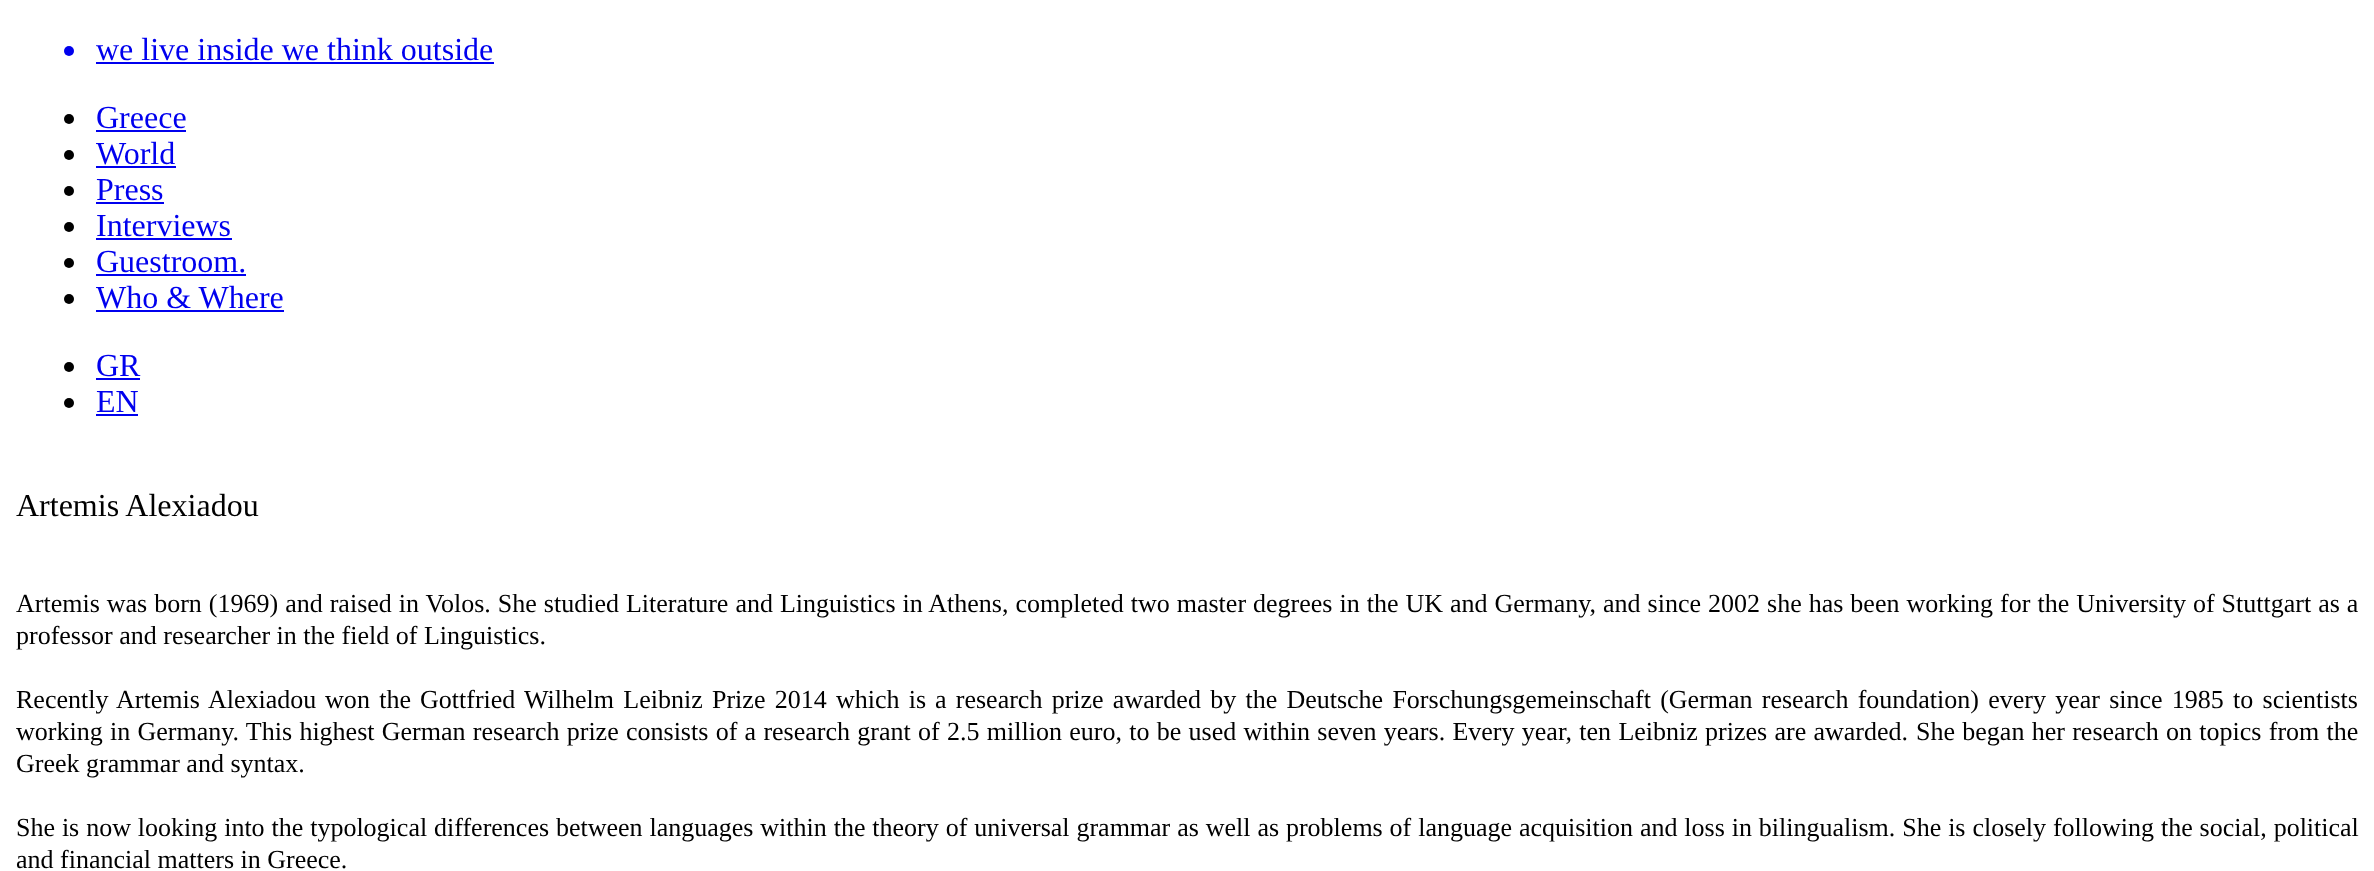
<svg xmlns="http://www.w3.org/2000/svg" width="2374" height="871">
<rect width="100%" height="100%" fill="#fff"/>
<circle cx="69" cy="51" r="5" fill="#00e"/>
<text x="96" y="60" style="font-family:Liberation Serif;font-size:32px;fill:#00e">we live inside we think outside</text>
<rect x="96" y="62" width="398" height="2" fill="#00e"/>
<circle cx="69" cy="119" r="5" fill="#000"/>
<text x="96" y="128" style="font-family:Liberation Serif;font-size:32px;fill:#00e">Greece</text>
<rect x="96" y="130" width="90" height="2" fill="#00e"/>
<circle cx="69" cy="155" r="5" fill="#000"/>
<text x="96" y="164" style="font-family:Liberation Serif;font-size:32px;fill:#00e">World</text>
<rect x="96" y="166" width="80" height="2" fill="#00e"/>
<circle cx="69" cy="191" r="5" fill="#000"/>
<text x="96" y="200" style="font-family:Liberation Serif;font-size:32px;fill:#00e">Press</text>
<rect x="96" y="202" width="68" height="2" fill="#00e"/>
<circle cx="69" cy="227" r="5" fill="#000"/>
<text x="96" y="236" style="font-family:Liberation Serif;font-size:32px;fill:#00e">Interviews</text>
<rect x="96" y="238" width="136" height="2" fill="#00e"/>
<circle cx="69" cy="263" r="5" fill="#000"/>
<text x="96" y="272" style="font-family:Liberation Serif;font-size:32px;fill:#00e">Guestroom.</text>
<rect x="96" y="274" width="150" height="2" fill="#00e"/>
<circle cx="69" cy="299" r="5" fill="#000"/>
<text x="96" y="308" style="font-family:Liberation Serif;font-size:32px;fill:#00e">Who &amp; Where</text>
<rect x="96" y="310" width="188" height="2" fill="#00e"/>
<circle cx="69" cy="367" r="5" fill="#000"/>
<text x="96" y="376" style="font-family:Liberation Serif;font-size:32px;fill:#00e">GR</text>
<rect x="96" y="378" width="44" height="2" fill="#00e"/>
<circle cx="69" cy="403" r="5" fill="#000"/>
<text x="96" y="412" style="font-family:Liberation Serif;font-size:32px;fill:#00e">EN</text>
<rect x="96" y="414" width="42" height="2" fill="#00e"/>
<text x="16" y="516" style="font-family:Liberation Serif;font-size:32px;fill:#000">Artemis Alexiadou</text>
<text x="16" y="612" word-spacing="0.5" style="font-family:Liberation Serif;font-size:26px;fill:#000">Artemis was born (1969) and raised in Volos. She studied Literature and Linguistics in Athens, completed two master degrees in the UK and Germany, and since 2002 she has been working for the University of Stuttgart as a</text>
<text x="16" y="644" style="font-family:Liberation Serif;font-size:26px;fill:#000">professor and researcher in the field of Linguistics.</text>
<text x="16" y="708" style="font-family:Liberation Serif;font-size:26px;fill:#000">Recently</text>
<text x="116" y="708" style="font-family:Liberation Serif;font-size:26px;fill:#000">Artemis</text>
<text x="208" y="708" style="font-family:Liberation Serif;font-size:26px;fill:#000">Alexiadou</text>
<text x="325" y="708" style="font-family:Liberation Serif;font-size:26px;fill:#000">wo</text>
<text x="357" y="708" word-spacing="2.75" style="font-family:Liberation Serif;font-size:26px;fill:#000">n the</text>
<text x="420" y="708" word-spacing="2.75" style="font-family:Liberation Serif;font-size:26px;fill:#000">Gottfried Wilhelm Leibniz</text>
<text x="712" y="708" word-spacing="2.75" style="font-family:Liberation Serif;font-size:26px;fill:#000">Prize 2014 which is</text>
<text x="935" y="708" word-spacing="2.75" style="font-family:Liberation Serif;font-size:26px;fill:#000">a research prize awarded by the Deutsche Forschungsgemeinschaft (German research foundation) every year since 1985 to scientists</text>
<text x="16" y="740" word-spacing="0.8" style="font-family:Liberation Serif;font-size:26px;fill:#000">working in Germany. This highest German research prize consists of a research grant of 2.5 million euro, to be used within seven years. Every year, ten Leibniz prizes are awarded.</text>
<text x="1916" y="740" word-spacing="0.8" style="font-family:Liberation Serif;font-size:26px;fill:#000">She began her research on topics from the</text>
<text x="16" y="772" style="font-family:Liberation Serif;font-size:26px;fill:#000">Greek grammar and syntax.</text>
<text x="16" y="836" word-spacing="0.4" style="font-family:Liberation Serif;font-size:26px;fill:#000">She is now looking into the typological differences between languages within the theory of universal grammar as well as problems of language acquisition and loss in bilingualism. She is closely following the social, political</text>
<text x="16" y="868" style="font-family:Liberation Serif;font-size:26px;fill:#000">and financial matters in Greece.</text>
</svg>
